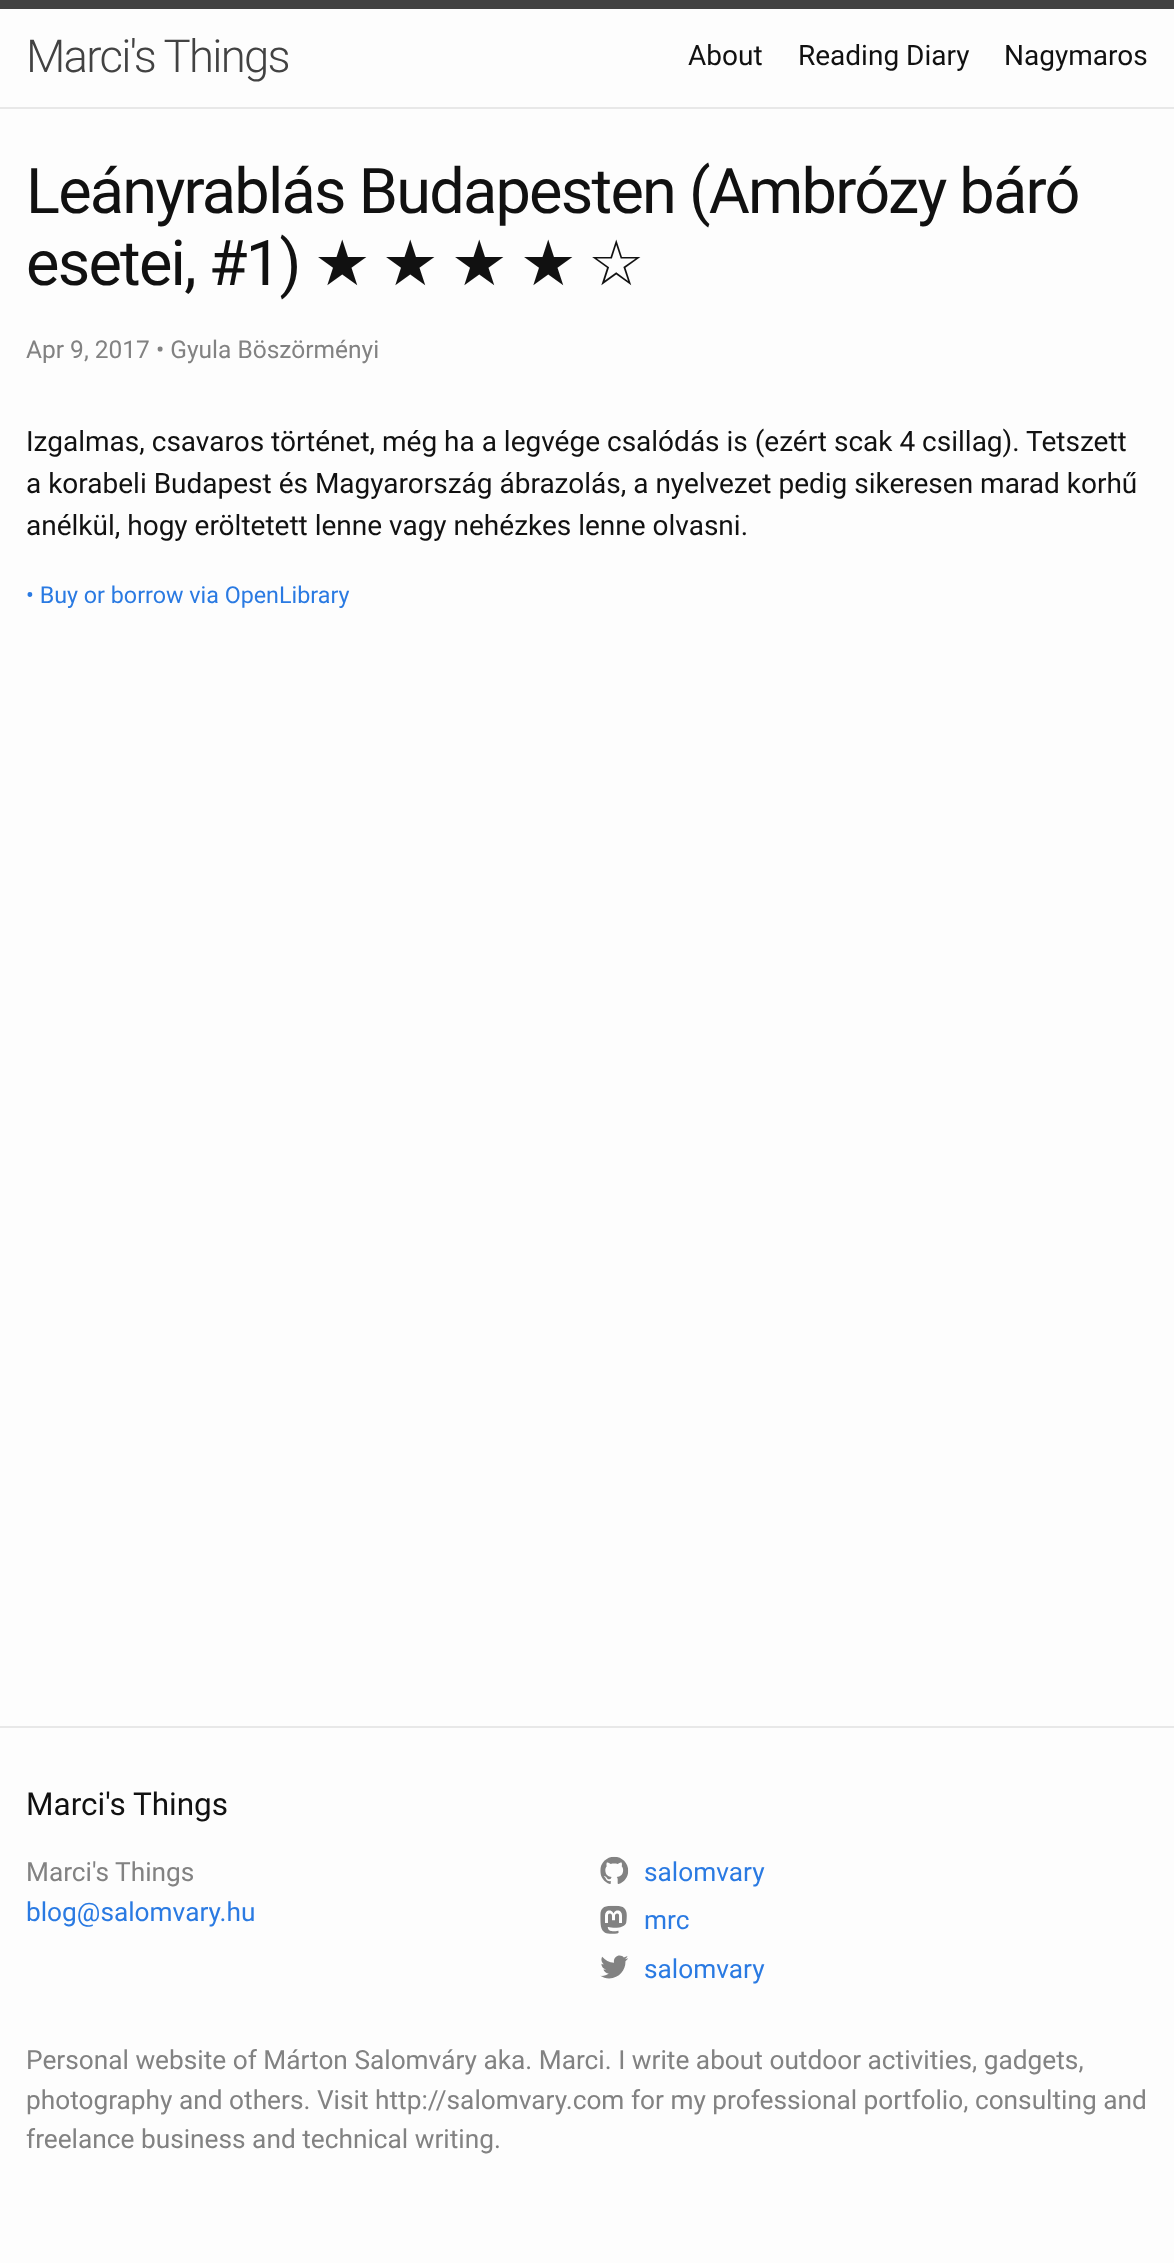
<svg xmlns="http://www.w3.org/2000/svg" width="1174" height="2263">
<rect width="100%" height="100%" fill="#fdfdfd"/>
<rect width="1174" height="9" fill="#424242"/>
<rect y="107" width="1174" height="2" fill="#e8e8e8"/>
<text x="26" y="72" style="font-family:Roboto;font-size:45.5px;font-weight:300;letter-spacing:-1.75px;fill:#424242">Marci's Things</text>
<text x="688" y="65" style="font-family:Roboto;font-size:28px;fill:#111">About</text>
<text x="798" y="65" style="font-family:Roboto;font-size:28px;fill:#111">Reading Diary</text>
<text x="1004" y="65" style="font-family:Roboto;font-size:28px;fill:#111">Nagymaros</text>
<text x="26" y="213" style="font-family:Roboto;font-size:63px;letter-spacing:-1.75px;fill:#111">Leányrablás Budapesten (Ambrózy báró</text>
<text x="26" y="285" style="font-family:Roboto;font-size:63px;letter-spacing:-1.75px;fill:#111">esetei, #1)</text>
<text x="314" y="285" style="font-family:DejaVu Sans;font-size:63px;letter-spacing:-1.75px;fill:#111">★</text>
<text x="382" y="285" style="font-family:DejaVu Sans;font-size:63px;letter-spacing:-1.75px;fill:#111">★</text>
<text x="451" y="285" style="font-family:DejaVu Sans;font-size:63px;letter-spacing:-1.75px;fill:#111">★</text>
<text x="520" y="285" style="font-family:DejaVu Sans;font-size:63px;letter-spacing:-1.75px;fill:#111">★</text>
<text x="588" y="285" style="font-family:DejaVu Sans;font-size:63px;letter-spacing:-1.75px;fill:#111">☆</text>
<text x="26" y="358" style="font-family:Roboto;font-size:24.5px;fill:#828282">Apr 9, 2017 • Gyula Böszörményi</text>
<text x="26" y="451" style="font-family:Roboto;font-size:28px;fill:#111">Izgalmas, csavaros történet, még ha a legvége csalódás is (ezért scak 4 csillag). Tetszett</text>
<text x="26" y="493" style="font-family:Roboto;font-size:28px;fill:#111">a korabeli Budapest és Magyarország ábrazolás, a nyelvezet pedig sikeresen marad korhű</text>
<text x="26" y="535" style="font-family:Roboto;font-size:28px;fill:#111">anélkül, hogy eröltetett lenne vagy nehézkes lenne olvasni.</text>
<text x="26" y="603" style="font-family:Roboto;font-size:23.3px;fill:#2a7ae2">• Buy or borrow via OpenLibrary</text>
<rect y="1726" width="1174" height="2" fill="#e8e8e8"/>
<text x="26" y="1815" style="font-family:Roboto;font-size:31.5px;fill:#111">Marci's Things</text>
<text x="26" y="1881" style="font-family:Roboto;font-size:26.25px;fill:#828282">Marci's Things</text>
<text x="26" y="1921" style="font-family:Roboto;font-size:26.25px;fill:#2a7ae2">blog@salomvary.hu</text>
<image x="600" y="1856" width="29" height="28" href="media/1.png"/>
<text x="644" y="1881" style="font-family:Roboto;font-size:26.25px;fill:#2a7ae2">salomvary</text>
<image x="600" y="1905" width="27" height="29" href="media/2.png"/>
<text x="644" y="1929" style="font-family:Roboto;font-size:26.25px;fill:#2a7ae2">mrc</text>
<image x="600" y="1955" width="28" height="24" href="media/3.png"/>
<text x="644" y="1978" style="font-family:Roboto;font-size:26.25px;fill:#2a7ae2">salomvary</text>
<text x="26" y="2069" style="font-family:Roboto;font-size:26.25px;fill:#828282">Personal website of Márton Salomváry aka. Marci. I write about outdoor activities, gadgets,</text>
<text x="26" y="2109" style="font-family:Roboto;font-size:26.25px;fill:#828282">photography and others. Visit http://salomvary.com for my professional portfolio, consulting and</text>
<text x="26" y="2148" style="font-family:Roboto;font-size:26.25px;fill:#828282">freelance business and technical writing.</text>
</svg>
